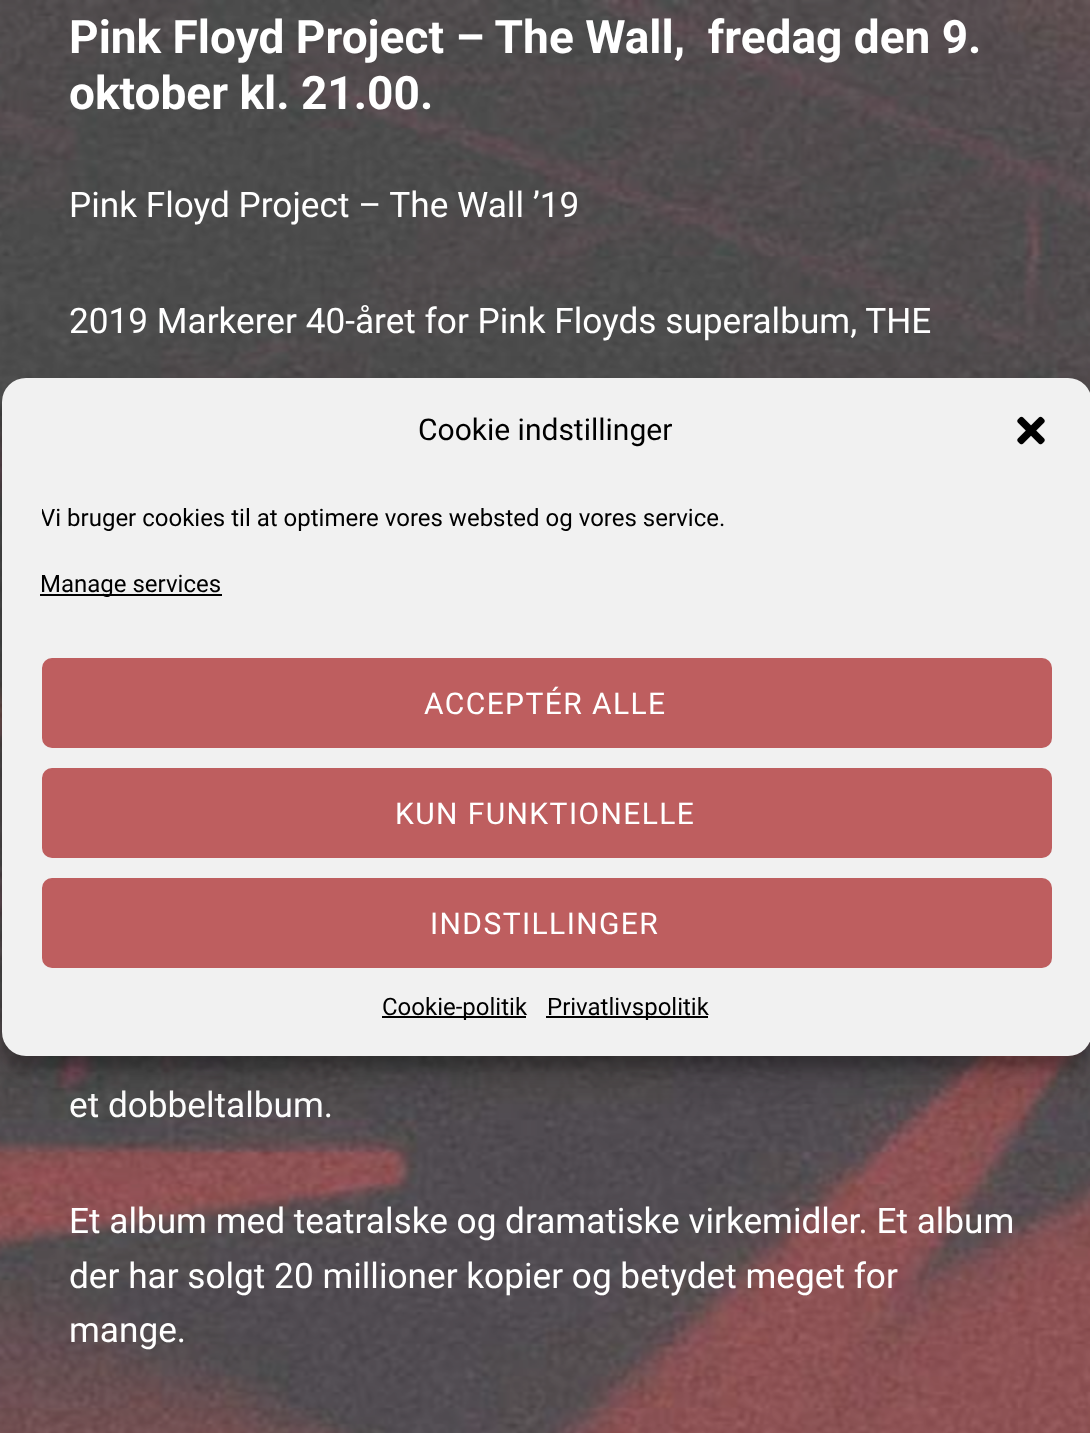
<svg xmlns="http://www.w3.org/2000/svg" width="1090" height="1433">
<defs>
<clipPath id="clip1"><rect x="42" y="500" width="1010" height="46"/></clipPath>
</defs>
<rect width="100%" height="100%" fill="#fff"/>
<image x="0" y="0" width="1090" height="1433" href="media/1.png"/>
<text x="69" y="53" style="font-family:Roboto;font-size:46px;font-weight:bold;fill:#fff" xml:space="preserve">Pink Floyd Project – The Wall,  fredag den 9.</text>
<text x="69" y="109" style="font-family:Roboto;font-size:46px;font-weight:bold;fill:#fff">oktober kl. 21.00.</text>
<text x="69" y="217" style="font-family:Roboto;font-size:35.2px;fill:#fff">Pink Floyd Project – The Wall ’19</text>
<text x="69" y="333" style="font-family:Roboto;font-size:35.2px;fill:#fff">2019 Markerer 40-året for Pink Floyds superalbum, THE</text>
<text x="69" y="1117" style="font-family:Roboto;font-size:35.2px;fill:#fff">et dobbeltalbum.</text>
<text x="69" y="1233" style="font-family:Roboto;font-size:35.2px;fill:#fff">Et album med teatralske og dramatiske virkemidler. Et album</text>
<text x="69" y="1288" style="font-family:Roboto;font-size:35.2px;fill:#fff">der har solgt 20 millioner kopier og betydet meget for</text>
<text x="69" y="1342" style="font-family:Roboto;font-size:35.2px;fill:#fff">mange.</text>
<rect x="2" y="390" width="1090" height="678" rx="24" fill="#0000003b" filter="blur(6px)"/>
<rect x="2" y="398" width="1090" height="678" rx="24" fill="#00000030" filter="blur(20px)"/>
<rect x="2" y="378" width="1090" height="678" rx="24" fill="#f1f1f1"/>
<text x="418" y="440" style="font-family:Roboto;font-size:30px;fill:#000">Cookie indstillinger</text>
<image x="1017" y="416" width="28" height="29" href="media/2.png"/>
<g clip-path="url(#clip1)">
<text x="40" y="526" style="font-family:Roboto;font-size:24px;fill:#000">Vi bruger cookies til at optimere vores websted og vores service.</text>
</g>
<rect x="40" y="594" width="182" height="2" fill="#000"/>
<text x="40" y="592" style="font-family:Roboto;font-size:24px;fill:#000">Manage services</text>
<rect x="43" y="659" width="1008" height="88" rx="9" fill="#be5e5f" stroke="#be5e5f" stroke-width="2"/>
<text x="424" y="714" style="font-family:Roboto;font-size:30px;letter-spacing:1.4px;fill:#fff">ACCEPTÉR ALLE</text>
<rect x="43" y="769" width="1008" height="88" rx="9" fill="#be5e5f" stroke="#be5e5f" stroke-width="2"/>
<text x="395" y="824" style="font-family:Roboto;font-size:30px;letter-spacing:1.4px;fill:#fff">KUN FUNKTIONELLE</text>
<rect x="43" y="879" width="1008" height="88" rx="9" fill="#be5e5f" stroke="#be5e5f" stroke-width="2"/>
<text x="430" y="934" style="font-family:Roboto;font-size:30px;letter-spacing:1.4px;fill:#fff">INDSTILLINGER</text>
<rect x="382" y="1016" width="144" height="2" fill="#000"/>
<text x="382" y="1015" style="font-family:Roboto;font-size:24px;fill:#000">Cookie-politik</text>
<rect x="546" y="1016" width="162" height="2" fill="#000"/>
<text x="547" y="1015" style="font-family:Roboto;font-size:24px;fill:#000">Privatlivspolitik</text>
</svg>
